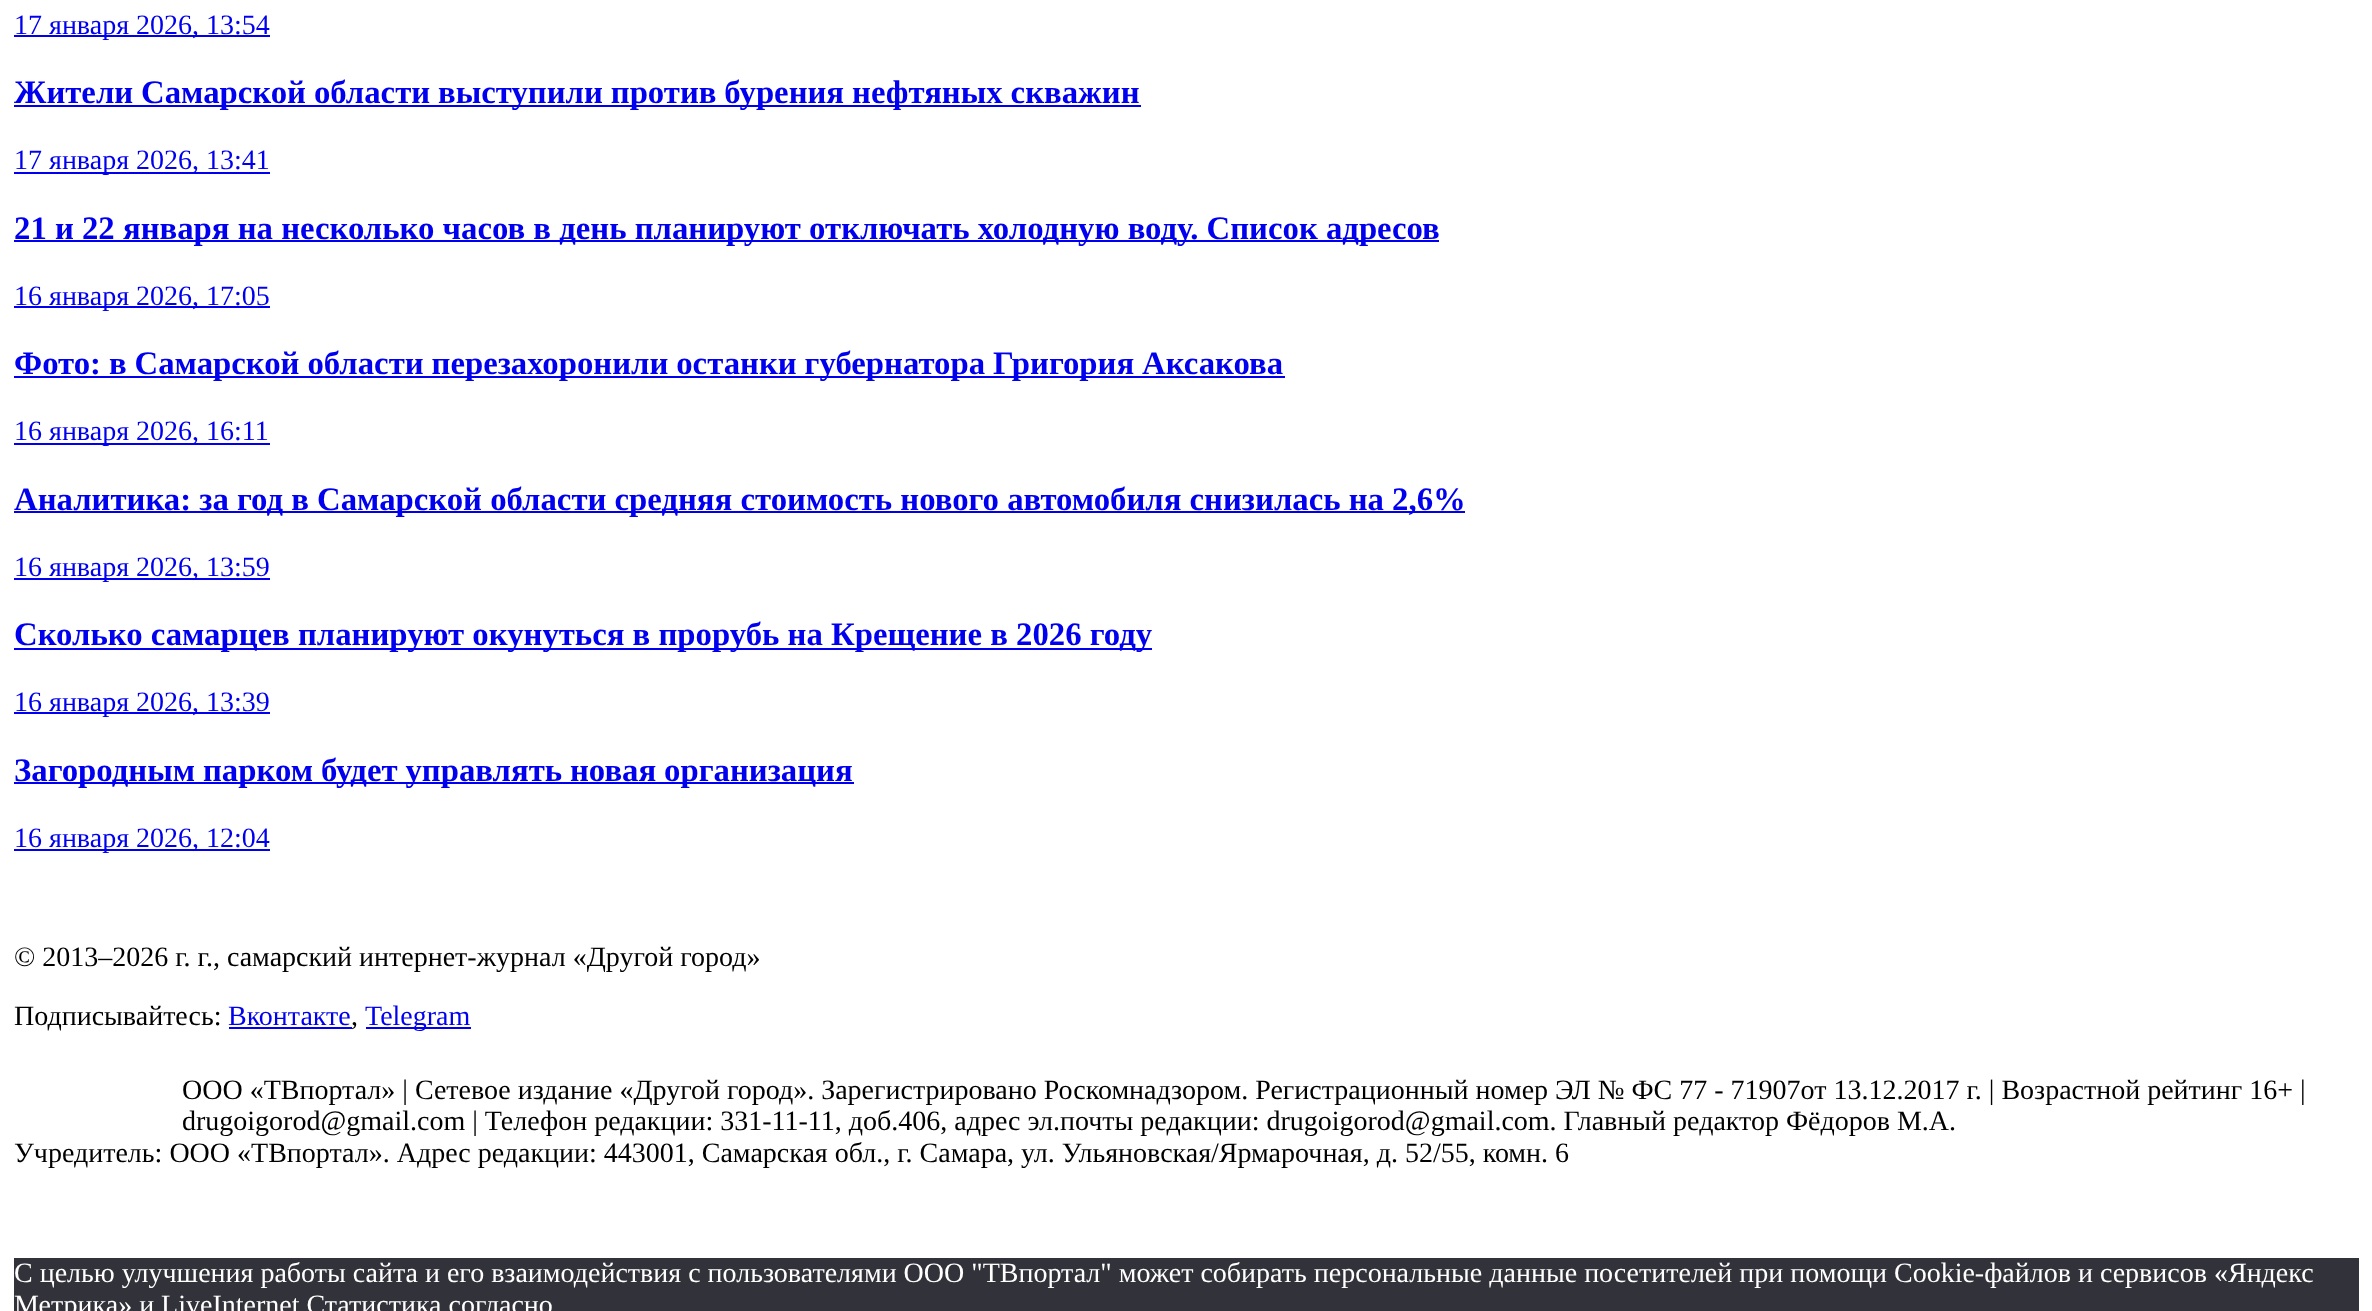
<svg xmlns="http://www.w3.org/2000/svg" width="2372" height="1311">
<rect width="100%" height="100%" fill="#fff"/>
<rect x="14" y="35" width="256" height="2" fill="#00e"/>
<text x="14" y="34" style="font-family:Liberation Serif;font-size:28px;fill:#00e">17 января 2026, 13:54</text>
<rect x="14" y="105" width="1127" height="2" fill="#00e"/>
<text x="14" y="103" word-spacing="-0.25" style="font-family:Liberation Serif;font-size:32.75px;font-weight:bold;fill:#00e">Жители Самарской области выступили против бурения нефтяных скважин</text>
<rect x="14" y="172" width="256" height="2" fill="#00e"/>
<text x="14" y="169" style="font-family:Liberation Serif;font-size:28px;fill:#00e">17 января 2026, 13:41</text>
<rect x="14" y="240" width="1425" height="2" fill="#00e"/>
<text x="14" y="239" style="font-family:Liberation Serif;font-size:32.75px;font-weight:bold;fill:#00e">21 и 22 января на несколько часов в день планируют отключать холодную воду. Список адресов</text>
<rect x="14" y="306" width="256" height="2" fill="#00e"/>
<text x="14" y="305" style="font-family:Liberation Serif;font-size:28px;fill:#00e">16 января 2026, 17:05</text>
<rect x="14" y="376" width="1271" height="2" fill="#00e"/>
<text x="14" y="374" word-spacing="-0.25" style="font-family:Liberation Serif;font-size:32.75px;font-weight:bold;fill:#00e">Фото: в Самарской области перезахоронили останки губернатора Григория Аксакова</text>
<rect x="14" y="443" width="256" height="2" fill="#00e"/>
<text x="14" y="440" style="font-family:Liberation Serif;font-size:28px;fill:#00e">16 января 2026, 16:11</text>
<rect x="14" y="511" width="1451" height="2" fill="#00e"/>
<text x="14" y="510" style="font-family:Liberation Serif;font-size:32.75px;font-weight:bold;fill:#00e">Аналитика: за год в Самарской области средняя стоимость нового автомобиля снизилась на 2,6%</text>
<rect x="14" y="578" width="256" height="2" fill="#00e"/>
<text x="14" y="576" style="font-family:Liberation Serif;font-size:28px;fill:#00e">16 января 2026, 13:59</text>
<rect x="14" y="648" width="1138" height="2" fill="#00e"/>
<text x="14" y="645" style="font-family:Liberation Serif;font-size:32.75px;font-weight:bold;fill:#00e">Сколько самарцев планируют окунуться в прорубь на Крещение в 2026 году</text>
<rect x="14" y="712" width="256" height="2" fill="#00e"/>
<text x="14" y="711" style="font-family:Liberation Serif;font-size:28px;fill:#00e">16 января 2026, 13:39</text>
<rect x="14" y="782" width="840" height="2" fill="#00e"/>
<text x="14" y="781" word-spacing="-0.25" style="font-family:Liberation Serif;font-size:32.75px;font-weight:bold;fill:#00e">Загородным парком будет управлять новая организация</text>
<rect x="14" y="849" width="256" height="2" fill="#00e"/>
<text x="14" y="847" style="font-family:Liberation Serif;font-size:28px;fill:#00e">16 января 2026, 12:04</text>
<text x="14" y="966" style="font-family:Liberation Serif;font-size:28px;fill:#000">© 2013–2026 г. г., самарский интернет-журнал «Другой город»</text>
<text x="14" y="1025" style="font-family:Liberation Serif;font-size:28px;fill:#000">Подписывайтесь:</text>
<text x="228" y="1025" style="font-family:Liberation Serif;font-size:28px;fill:#00e">Вконтакте</text>
<rect x="229" y="1027" width="123" height="2" fill="#00e"/>
<text x="351" y="1025" style="font-family:Liberation Serif;font-size:28px;fill:#000">,</text>
<rect x="366" y="1027" width="105" height="2" fill="#00e"/>
<text x="365" y="1025" style="font-family:Liberation Serif;font-size:28px;fill:#00e">Telegram</text>
<text x="182" y="1099" style="font-family:Liberation Serif;font-size:28px;fill:#000">ООО «ТВпортал» | Сетевое издание «Другой город». Зарегистрировано Роскомнадзором. Регистрационный номер ЭЛ № ФС 77 - 71907от 13.12.2017 г. | Возрастной рейтинг 16+ |</text>
<text x="182" y="1130" style="font-family:Liberation Serif;font-size:28px;fill:#000">drugoigorod@gmail.com | Телефон редакции: 331-11-11, доб.406, адрес эл.почты редакции: drugoigorod@gmail.com. Главный редактор Фёдоров М.А.</text>
<text x="14" y="1162" style="font-family:Liberation Serif;font-size:28px;fill:#000">Учредитель: ООО «ТВпортал». Адрес редакции: 443001, Самарская обл., г. Самара, ул. Ульяновская/Ярмарочная, д. 52/55, комн. 6</text>
<rect x="14" y="1258" width="2345" height="53" fill="#32323a"/>
<text x="14" y="1282" style="font-family:Liberation Serif;font-size:28px;fill:#fff">С целью улучшения работы сайта и его взаимодействия с пользователями ООО "ТВпортал" может собирать персональные данные посетителей при помощи Cookie-файлов и сервисов «Яндекс</text>
<text x="14" y="1314" style="font-family:Liberation Serif;font-size:28px;fill:#fff">Метрика» и LiveInternet Статистика согласно</text>
</svg>
